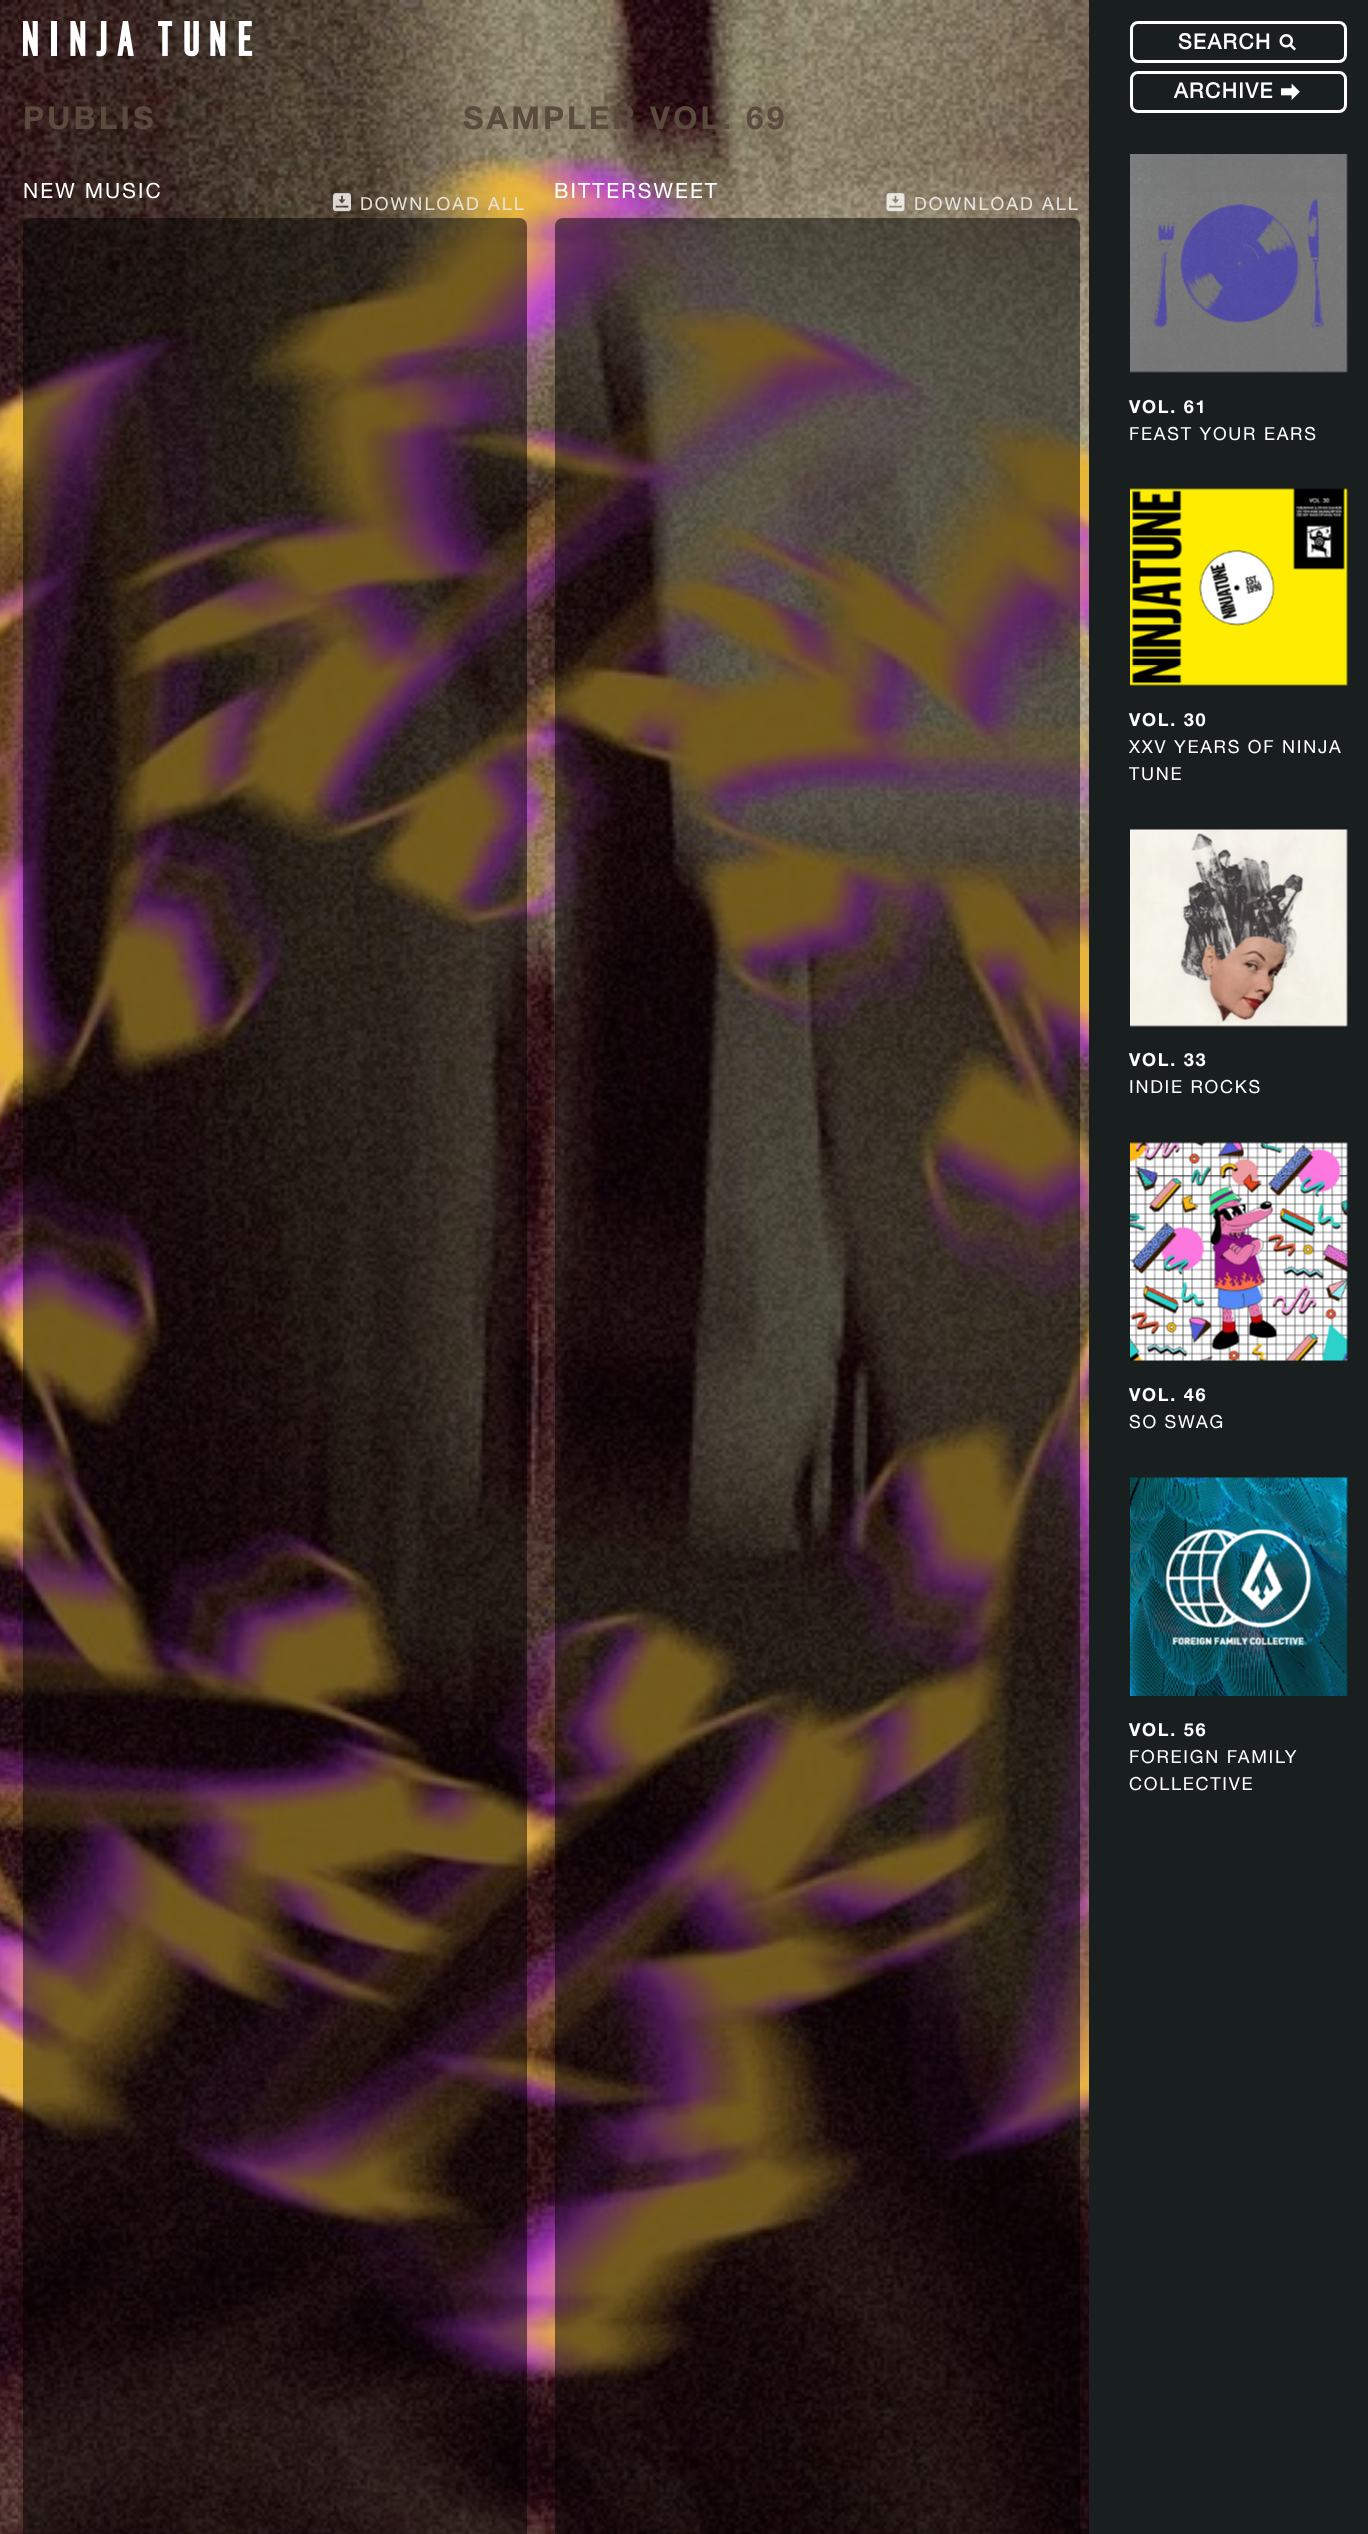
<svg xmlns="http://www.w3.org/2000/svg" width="1368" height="2534">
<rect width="100%" height="100%" fill="#191e1e"/>
<image x="0" y="0" width="1089" height="2534" href="media/1.png"/>
<image x="23" y="21" width="230" height="36" href="media/2.png"/>
<text x="23" y="129" style="font-family:Helvetica Neue;font-size:31.5px;font-weight:bold;letter-spacing:3.1px;fill:#5b4a3e">PUBLIS</text>
<text x="463" y="129" style="font-family:Helvetica Neue;font-size:31.5px;font-weight:bold;letter-spacing:3.1px;fill:#5b4a3e">SAMPLER VOL. 69</text>
<text x="23" y="198" style="font-family:Helvetica Neue;font-size:21px;letter-spacing:2.1px;fill:#fff">NEW MUSIC</text>
<image x="333" y="193" width="18" height="19" href="media/3.png"/>
<text x="360" y="210" style="font-family:Helvetica Neue;font-size:18px;letter-spacing:2.1px;fill:#e9e4da">DOWNLOAD ALL</text>
<rect x="23" y="218" width="504" height="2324" rx="8" fill="#00000080"/>
<text x="554" y="198" style="font-family:Helvetica Neue;font-size:21px;letter-spacing:2.1px;fill:#fff">BITTERSWEET</text>
<image x="886" y="193" width="19" height="19" href="media/4.png"/>
<text x="914" y="210" style="font-family:Helvetica Neue;font-size:18px;letter-spacing:2.1px;fill:#e8e5e1">DOWNLOAD ALL</text>
<rect x="555" y="218" width="525" height="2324" rx="8" fill="#00000080"/>
<rect x="1131.5" y="22.5" width="214" height="39" rx="6.5" fill="none" stroke="#fff" stroke-width="3"/>
<text x="1178" y="49" style="font-family:'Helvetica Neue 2';font-size:21px;font-weight:bold;letter-spacing:1.5px;fill:#fff">SEARCH</text>
<image x="1279" y="34" width="17" height="17" href="media/5.png"/>
<rect x="1131.5" y="72.5" width="214" height="39" rx="6.5" fill="none" stroke="#fff" stroke-width="3"/>
<text x="1174" y="98" style="font-family:'Helvetica Neue 2';font-size:21px;font-weight:bold;letter-spacing:1.5px;fill:#fff">ARCHIVE</text>
<image x="1281" y="83" width="19" height="17" href="media/6.png"/>
<image x="1130" y="154" width="218" height="219" href="media/7.png"/>
<text x="1129" y="413" style="font-family:Helvetica Neue;font-size:18px;font-weight:bold;letter-spacing:1.75px;fill:#fff">VOL. 61</text>
<text x="1129" y="440" style="font-family:Helvetica Neue;font-size:18px;letter-spacing:1.75px;fill:#fff">FEAST YOUR EARS</text>
<image x="1130" y="488" width="218" height="198" href="media/8.png"/>
<text x="1129" y="726" style="font-family:Helvetica Neue;font-size:18px;font-weight:bold;letter-spacing:1.75px;fill:#fff">VOL. 30</text>
<text x="1129" y="753" style="font-family:Helvetica Neue;font-size:18px;letter-spacing:1.75px;fill:#fff">XXV YEARS OF NINJA</text>
<text x="1129" y="780" style="font-family:Helvetica Neue;font-size:18px;letter-spacing:1.75px;fill:#fff">TUNE</text>
<image x="1130" y="829" width="218" height="198" href="media/9.png"/>
<text x="1129" y="1066" style="font-family:Helvetica Neue;font-size:18px;font-weight:bold;letter-spacing:1.75px;fill:#fff">VOL. 33</text>
<text x="1129" y="1093" style="font-family:Helvetica Neue;font-size:18px;letter-spacing:1.75px;fill:#fff">INDIE ROCKS</text>
<image x="1130" y="1142" width="218" height="219" href="media/10.png"/>
<text x="1129" y="1401" style="font-family:Helvetica Neue;font-size:18px;font-weight:bold;letter-spacing:1.75px;fill:#fff">VOL. 46</text>
<text x="1129" y="1428" style="font-family:Helvetica Neue;font-size:18px;letter-spacing:1.75px;fill:#fff">SO SWAG</text>
<image x="1130" y="1477" width="218" height="219" href="media/11.png"/>
<text x="1129" y="1736" style="font-family:Helvetica Neue;font-size:18px;font-weight:bold;letter-spacing:1.75px;fill:#fff">VOL. 56</text>
<text x="1129" y="1763" style="font-family:Helvetica Neue;font-size:18px;letter-spacing:1.75px;fill:#fff">FOREIGN FAMILY</text>
<text x="1129" y="1790" style="font-family:Helvetica Neue;font-size:18px;letter-spacing:1.75px;fill:#fff">COLLECTIVE</text>
</svg>
